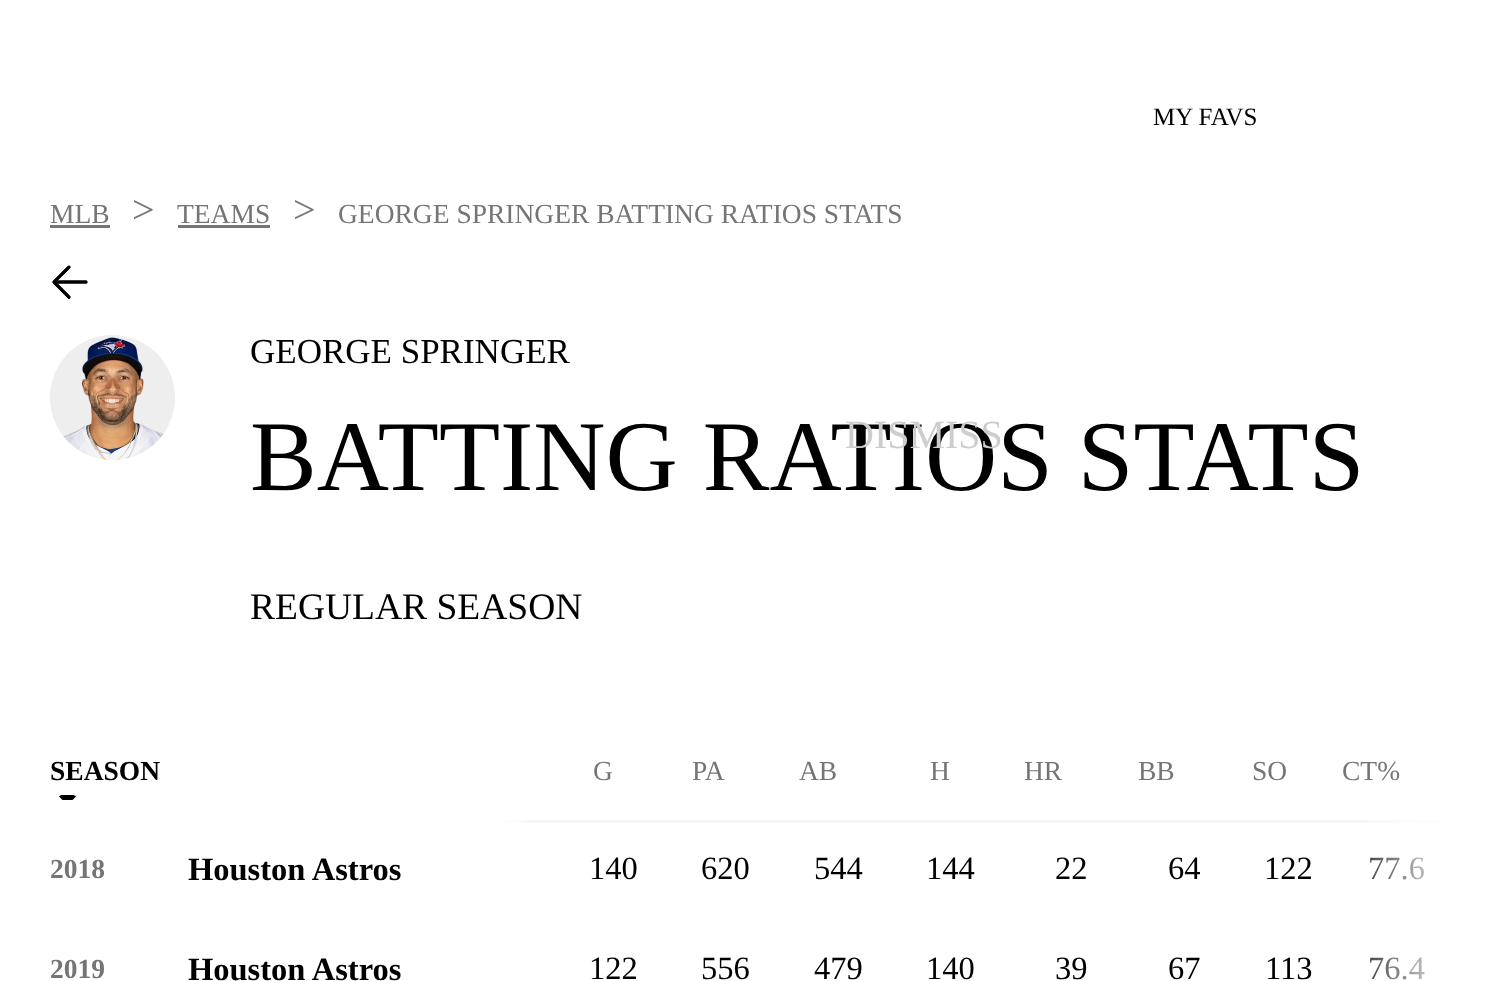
<svg xmlns="http://www.w3.org/2000/svg" width="1507" height="981">
<defs>
<linearGradient id="g1" gradientUnits="userSpaceOnUse" x1="1333" y1="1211" x2="1458" y2="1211"><stop offset="0" stop-color="#fff" stop-opacity="0"/><stop offset="1" stop-color="#fff"/></linearGradient>
<linearGradient id="g2" gradientUnits="userSpaceOnUse" x1="538" y1="870" x2="175" y2="870"><stop offset="0" stop-color="#fff" stop-opacity="0"/><stop offset="0.1" stop-color="#fff"/></linearGradient>
</defs>
<rect width="100%" height="100%" fill="#fff"/>
<text x="1153" y="125" style="font-family:Liberation Serif;font-size:25px;fill:#000">MY FAVS</text>
<text x="250" y="490" style="font-family:Liberation Serif;font-size:100px;fill:#000">BATTING RATIOS STATS</text>
<text x="845" y="448" style="font-family:Liberation Serif;font-size:40px;fill:#cdcdcd">DISMISS</text>
<text x="50" y="223" style="font-family:Liberation Serif;font-size:27.5px;fill:#757575">MLB</text>
<rect x="50" y="225" width="60" height="3" fill="#757575"/>
<text x="132" y="223" style="font-family:Liberation Serif;font-size:40px;fill:#757575">&gt;</text>
<text x="177" y="223" style="font-family:Liberation Serif;font-size:27.5px;fill:#757575">TEAMS</text>
<rect x="178" y="225" width="92" height="3" fill="#757575"/>
<text x="293" y="223" style="font-family:Liberation Serif;font-size:40px;fill:#757575">&gt;</text>
<text x="338" y="223" style="font-family:Liberation Serif;font-size:27.5px;fill:#757575">GEORGE SPRINGER BATTING RATIOS STATS</text>
<image x="52" y="265" width="36" height="34" href="media/1.png"/>
<circle cx="112.5" cy="397.5" r="62.5" fill="#eee"/>
<image x="63" y="337" width="101" height="123" href="media/2.png"/>
<text x="250" y="363" style="font-family:Liberation Serif;font-size:35px;fill:#000">GEORGE SPRINGER</text>
<text x="250" y="619" style="font-family:Liberation Serif;font-size:37.5px;fill:#000">REGULAR SEASON</text>
<text x="50" y="780" style="font-family:Liberation Serif;font-size:27.5px;font-weight:bold;fill:#000">SEASON</text>
<path d="M62.5 795c-1.5 0-2.5 .5-3.5 1.5l3.5 3.5h10l3.5-3.5c-1-1-2-1.5-3.5-1.5z" fill="#000"/>
<text x="593" y="780" style="font-family:Liberation Serif;font-size:27.5px;fill:#757575">G</text>
<text x="692" y="780" style="font-family:Liberation Serif;font-size:27.5px;fill:#757575">PA</text>
<text x="799" y="780" style="font-family:Liberation Serif;font-size:27.5px;fill:#757575">AB</text>
<text x="930" y="780" style="font-family:Liberation Serif;font-size:27.5px;fill:#757575">H</text>
<text x="1024" y="780" style="font-family:Liberation Serif;font-size:27.5px;fill:#757575">HR</text>
<text x="1138" y="780" style="font-family:Liberation Serif;font-size:27.5px;fill:#757575">BB</text>
<text x="1252" y="780" style="font-family:Liberation Serif;font-size:27.5px;fill:#757575">SO</text>
<text x="1342" y="780" style="font-family:Liberation Serif;font-size:27.5px;fill:#757575">CT%</text>
<rect x="502" y="820" width="956" height="3" fill="#f7f7f7"/>
<text x="1368" y="879" style="font-family:Liberation Serif;font-size:32.5px;fill:#000">77.6</text>
<text x="1368" y="979" style="font-family:Liberation Serif;font-size:32.5px;fill:#000">76.4</text>
<rect x="1370" y="820" width="88" height="160" fill="url(#g1)"/>
<text x="50" y="878" style="font-family:Liberation Serif;font-size:27.5px;font-weight:bold;fill:#757575">2018</text>
<rect x="502" y="820" width="24" height="3" fill="url(#g2)"/>
<text x="188" y="880" style="font-family:Liberation Serif;font-size:32.5px;font-weight:bold;fill:#000">Houston Astros</text>
<text x="589" y="879" style="font-family:Liberation Serif;font-size:32.5px;fill:#000">140</text>
<text x="701" y="879" style="font-family:Liberation Serif;font-size:32.5px;fill:#000">620</text>
<text x="814" y="879" style="font-family:Liberation Serif;font-size:32.5px;fill:#000">544</text>
<text x="926" y="879" style="font-family:Liberation Serif;font-size:32.5px;fill:#000">144</text>
<text x="1055" y="879" style="font-family:Liberation Serif;font-size:32.5px;fill:#000">22</text>
<text x="1168" y="879" style="font-family:Liberation Serif;font-size:32.5px;fill:#000">64</text>
<text x="1264" y="879" style="font-family:Liberation Serif;font-size:32.5px;fill:#000">122</text>
<text x="50" y="978" style="font-family:Liberation Serif;font-size:27.5px;font-weight:bold;fill:#757575">2019</text>
<text x="188" y="980" style="font-family:Liberation Serif;font-size:32.5px;font-weight:bold;fill:#000">Houston Astros</text>
<text x="589" y="979" style="font-family:Liberation Serif;font-size:32.5px;fill:#000">122</text>
<text x="701" y="979" style="font-family:Liberation Serif;font-size:32.5px;fill:#000">556</text>
<text x="814" y="979" style="font-family:Liberation Serif;font-size:32.5px;fill:#000">479</text>
<text x="926" y="979" style="font-family:Liberation Serif;font-size:32.5px;fill:#000">140</text>
<text x="1055" y="979" style="font-family:Liberation Serif;font-size:32.5px;fill:#000">39</text>
<text x="1168" y="979" style="font-family:Liberation Serif;font-size:32.5px;fill:#000">67</text>
<text x="1265" y="979" style="font-family:Liberation Serif;font-size:32.5px;fill:#000">113</text>
</svg>
